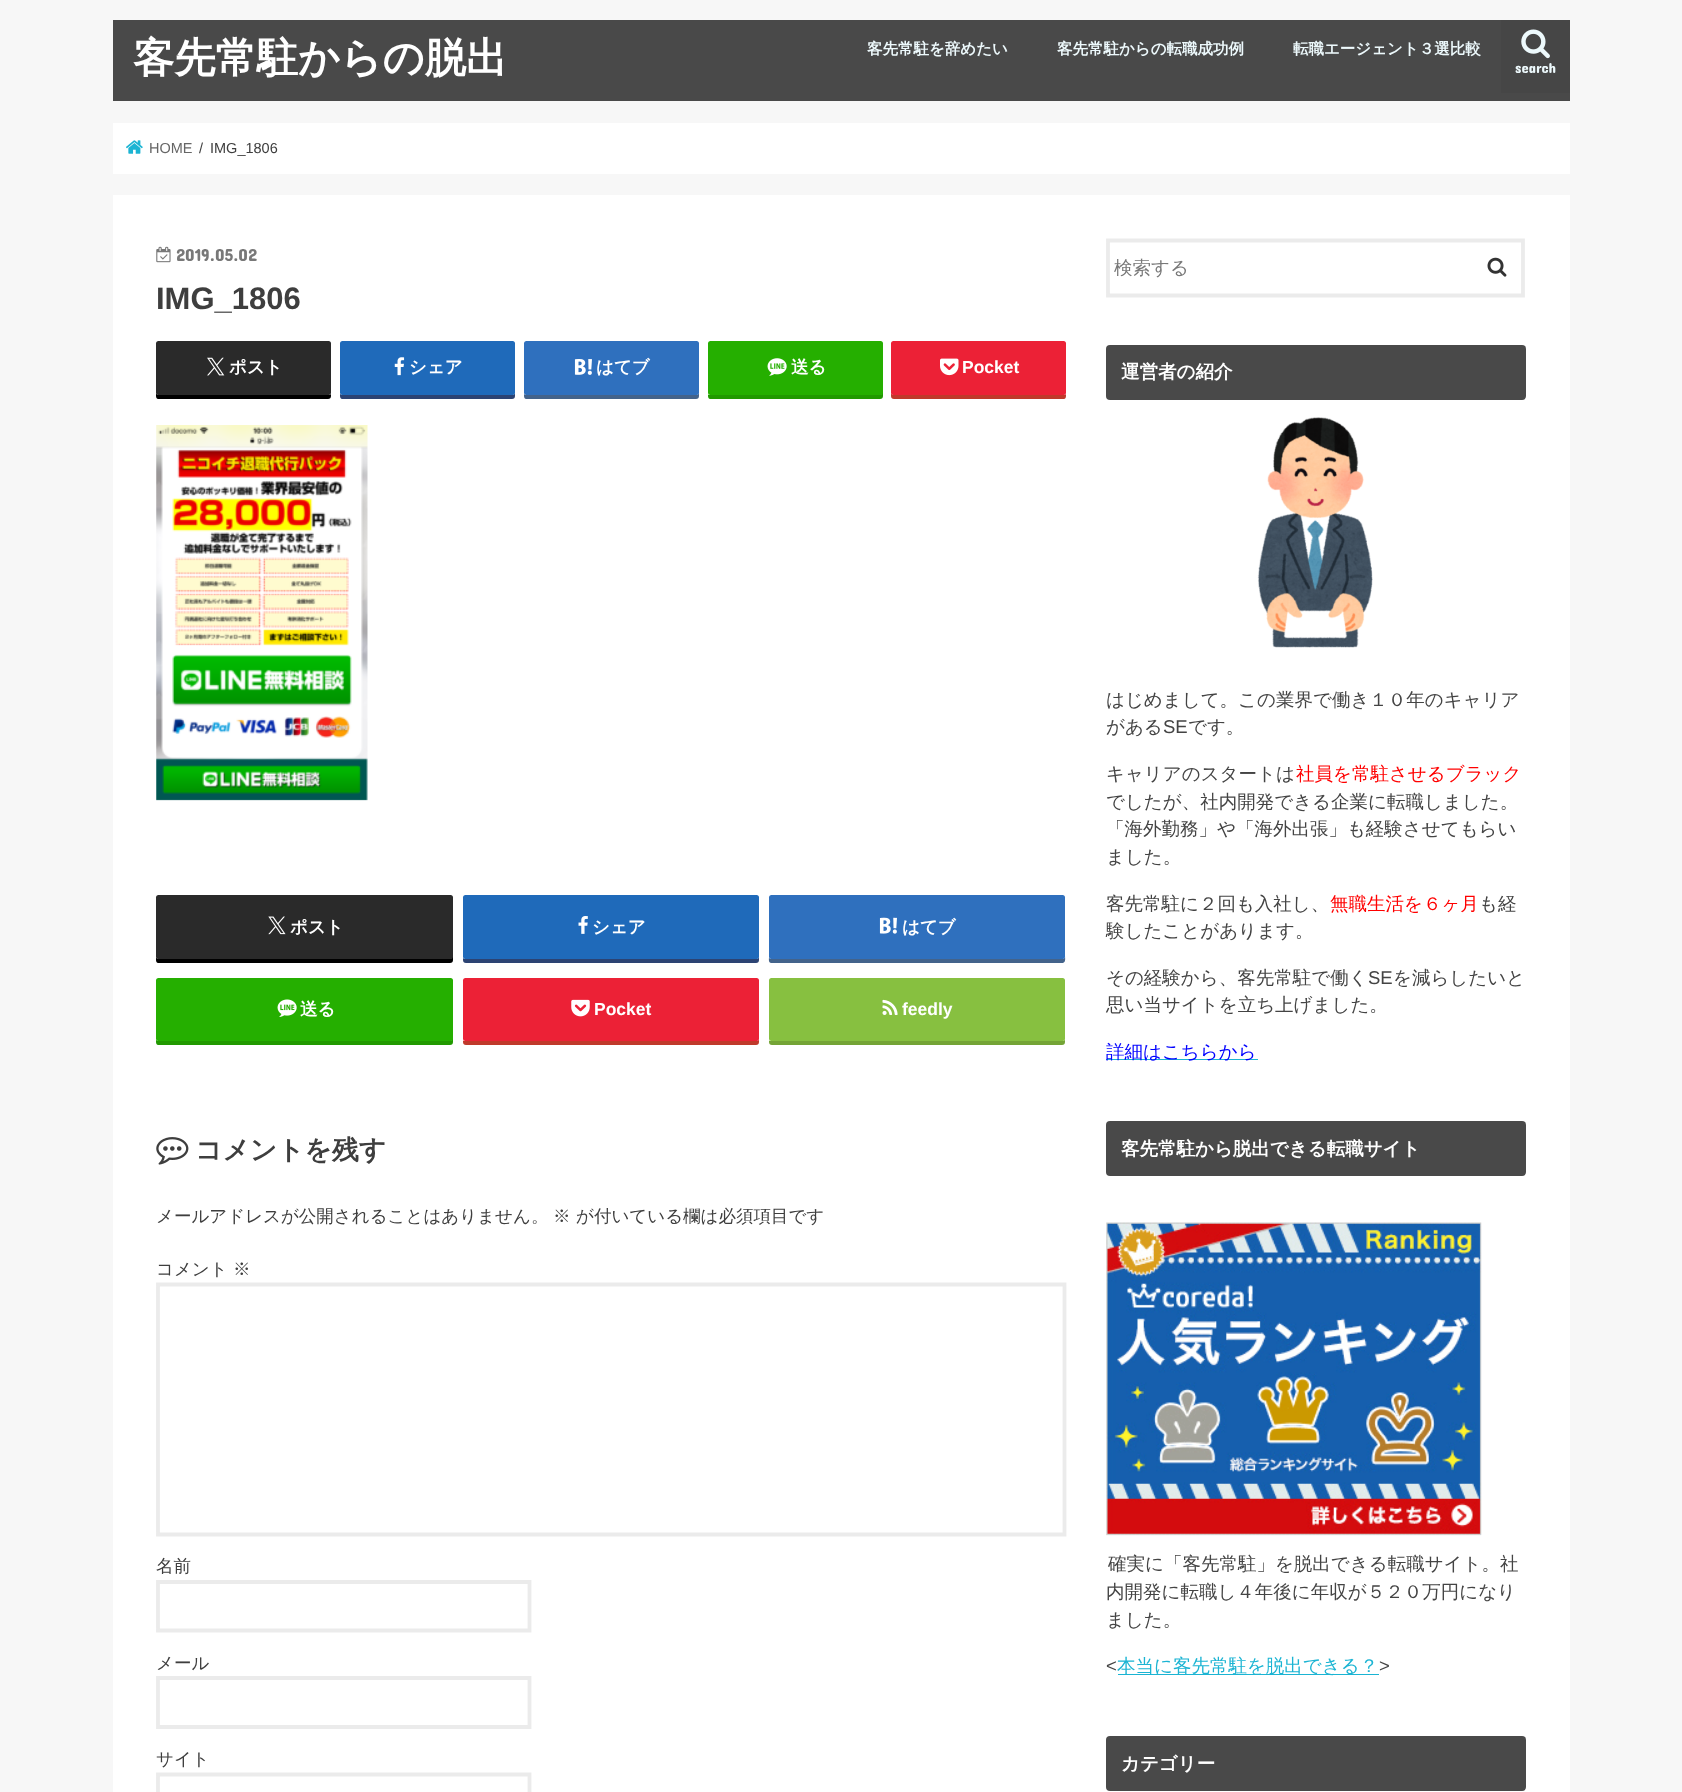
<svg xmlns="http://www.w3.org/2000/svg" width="1682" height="1792">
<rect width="100%" height="100%" fill="#f7f7f7"/>
<rect x="113" y="20" width="1457" height="81" fill="#494949"/>
<text x="133" y="72" style="font-family:WenQuanYi Zen Hei;font-size:41.25px;font-weight:bold;fill:#fff">客先常駐からの脱出</text>
<text x="867" y="54" style="font-family:WenQuanYi Zen Hei;font-size:15.5px;font-weight:bold;fill:#edf9fc">客先常駐を辞めたい</text>
<text x="1057" y="54" style="font-family:WenQuanYi Zen Hei;font-size:15.5px;font-weight:bold;fill:#edf9fc">客先常駐からの転職成功例</text>
<text x="1293" y="54" style="font-family:WenQuanYi Zen Hei;font-size:15.5px;font-weight:bold;fill:#edf9fc">転職エージェント３選比較</text>
<rect x="1501" y="20" width="69" height="73" fill="#464646"/>
<image x="1521" y="29" width="29" height="30" href="media/1.png"/>
<text x="1515" y="73" style="font-family:Concert One;font-size:14.5px;fill:#edf9fc">search</text>
<rect x="113" y="123" width="1457" height="51" fill="#ddd" filter="blur(0.5px)"/>
<rect x="113" y="123" width="1457" height="51" fill="#fff"/>
<image x="126" y="140" width="17" height="14" href="media/2.png"/>
<text x="149" y="153" style="font-family:Liberation Sans;font-size:14.5px;fill:#666">HOME</text>
<text x="199" y="153" style="font-family:Liberation Sans;font-size:14.5px;fill:#3e3e3e">/</text>
<text x="210" y="153" style="font-family:Liberation Sans;font-size:14.5px;fill:#3e3e3e">IMG_1806</text>
<rect x="113" y="195" width="1457" height="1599" fill="#ddd" filter="blur(0.5px)"/>
<rect x="113" y="195" width="1457" height="1597" fill="#fff"/>
<image x="156" y="246" width="15" height="17" href="media/3.png"/>
<text x="176" y="261" style="font-family:Concert One;font-size:17.5px;fill:#787878">2019.05.02</text>
<text x="156" y="309" style="font-family:Liberation Sans;font-size:31px;font-weight:bold;fill:#3e3e3e">IMG_1806</text>
<path d="M156 346v50c0 2 1 3 2 3h170c2 0 3-1 3-3v-2c0 0-1 1-2 1h-170c-2 0-3-1-3-3z" fill="#000"/>
<rect x="156" y="341" width="175" height="54" rx="2.5" fill="#2a2a2a"/>
<image x="207" y="357" width="18" height="19" href="media/4.png"/>
<text x="229" y="373" style="font-family:WenQuanYi Zen Hei;font-size:17.5px;font-weight:bold;fill:#fff">ポスト</text>
<path d="M340 392v4c0 2 1 3 2 3h170c2 0 3-1 3-3v-4c0 2-1 3-3 3h-170l-2-1z" fill="#2c4373"/>
<rect x="340" y="341" width="175" height="54" rx="2.5" fill="#1f6aba"/>
<image x="394" y="357" width="11" height="19" href="media/5.png"/>
<text x="409" y="373" style="font-family:WenQuanYi Zen Hei;font-size:17.5px;font-weight:bold;fill:#fff">シェア</text>
<path d="M524 394v2c0 2 1 3 2 3h170c2 0 3-1 3-3v-50v46c0 2-1 3-3 3h-170c-1 0-2-1-2-1z" fill="#43638b"/>
<rect x="524" y="341" width="175" height="54" rx="2.5" fill="#2f70be"/>
<image x="574" y="359" width="18" height="16" href="media/6.png"/>
<text x="596" y="373" style="font-family:WenQuanYi Zen Hei;font-size:17.5px;font-weight:bold;fill:#fff">はてブ</text>
<path d="M708 394v2c0 2 1 3 2 3h170c2 0 3-1 3-3v-48l-1-2v46c0 2-1 3-2 3h-170c-1 0-2 0-2-1z" fill="#219900"/>
<rect x="708" y="341" width="175" height="54" rx="2.5" fill="#25af00"/>
<image x="767" y="358" width="20" height="18" href="media/7.png"/>
<text x="791" y="373" style="font-family:WenQuanYi Zen Hei;font-size:17.5px;font-weight:bold;fill:#fff">送る</text>
<path d="M891 346v50c0 2 1 3 3 3h170c1 0 2-1 2-3v-2c0 0-1 1-2 1h-170c-2 0-3-1-3-3z" fill="#c0392b"/>
<rect x="891" y="341" width="175" height="54" rx="2.5" fill="#ec2136"/>
<image x="940" y="358" width="19" height="18" href="media/8.png"/>
<text x="962" y="373" style="font-family:Liberation Sans;font-size:17.5px;font-weight:bold;fill:#fff">Pocket</text>
<image x="156" y="425" width="212" height="376" href="media/9.png"/>
<path d="M156 900v60c0 2 1 3 2 3h292c2 0 3-1 3-3v-58l-1-2v56c0 2-1 3-2 3h-291c-2 0-3-1-3-3z" fill="#000"/>
<rect x="156" y="895" width="297" height="64" rx="2.5" fill="#2a2a2a"/>
<image x="268" y="916" width="18" height="19" href="media/10.png"/>
<text x="290" y="933" style="font-family:WenQuanYi Zen Hei;font-size:17.5px;font-weight:bold;fill:#fff">ポスト</text>
<path d="M463 958v2c0 2 1 3 3 3h290c2 0 3-1 3-3v-60v56c0 2-1 3-3 3h-291c-1 0-2-1-2-1z" fill="#2c4373"/>
<rect x="463" y="895" width="296" height="64" rx="2.5" fill="#1f6aba"/>
<image x="578" y="916" width="10" height="18" href="media/11.png"/>
<text x="592" y="933" style="font-family:WenQuanYi Zen Hei;font-size:17.5px;font-weight:bold;fill:#fff">シェア</text>
<path d="M769 957c0 2-1 6 3 6h291c3-1 2-5 2-7c0 2-1 3-3 3h-291c-1 0-2-1-2-2z" fill="#43638b"/>
<rect x="769" y="895" width="296" height="64" rx="2.5" fill="#2f70be"/>
<image x="879" y="917" width="18" height="17" href="media/12.png"/>
<text x="902" y="933" style="font-family:WenQuanYi Zen Hei;font-size:17.5px;font-weight:bold;fill:#fff">はてブ</text>
<path d="M156 982v60c0 2 1 3 2 3h292c2 0 3-1 3-3v-58l-1-2v57c0 1-1 2-2 2h-291c-2 0-3-1-3-2z" fill="#219900"/>
<rect x="156" y="978" width="297" height="63" rx="2.5" fill="#25af00"/>
<image x="277" y="999" width="20" height="18" href="media/13.png"/>
<text x="300" y="1015" style="font-family:WenQuanYi Zen Hei;font-size:17.5px;font-weight:bold;fill:#fff">送る</text>
<path d="M463 1040v2c0 2 1 3 3 3h290c2 0 3-1 3-3v-60v57c0 1-1 2-3 2h-291c-1 0-2 0-2-1z" fill="#c0392b"/>
<rect x="463" y="978" width="296" height="63" rx="2.5" fill="#ec2136"/>
<image x="571" y="999" width="19" height="18" href="media/14.png"/>
<text x="594" y="1015" style="font-family:Liberation Sans;font-size:17.5px;font-weight:bold;fill:#fff">Pocket</text>
<path d="M769 1040v2c0 2 1 3 3 3h290c2 0 3-1 3-3v-3c0 1-1 2-3 2h-291c-1 0-2 0-2-1z" fill="#74a436"/>
<rect x="769" y="978" width="296" height="63" rx="2.5" fill="#87c040"/>
<image x="882" y="999" width="16" height="16" href="media/15.png"/>
<text x="902" y="1015" style="font-family:Liberation Sans;font-size:17.5px;font-weight:bold;fill:#fff">feedly</text>
<image x="156" y="1137" width="33" height="28" href="media/16.png"/>
<text x="195" y="1159" style="font-family:WenQuanYi Zen Hei;font-size:26.75px;font-weight:bold;fill:#3e3e3e">コメントを残す</text>
<text x="156" y="1222" style="font-family:WenQuanYi Zen Hei;font-size:17.5px;font-weight:500;fill:#3e3e3e">メールアドレスが公開されることはありません。</text>
<text x="553" y="1222" style="font-family:WenQuanYi Zen Hei;font-size:17.5px;font-weight:500;fill:#3e3e3e">※</text>
<text x="576" y="1222" style="font-family:WenQuanYi Zen Hei;font-size:17.5px;font-weight:500;fill:#3e3e3e">が付いている欄は必須項目です</text>
<text x="156" y="1275" style="font-family:WenQuanYi Zen Hei;font-size:17.5px;font-weight:500;fill:#3e3e3e">コメント</text>
<text x="233" y="1275" style="font-family:WenQuanYi Zen Hei;font-size:17.5px;font-weight:500;fill:#3e3e3e">※</text>
<path d="M158 1284.5h906.5v250h-906.5z" fill="none" stroke="#ebebeb" stroke-width="3.8"/>
<text x="156" y="1572" style="font-family:WenQuanYi Zen Hei;font-size:17.5px;font-weight:500;fill:#3e3e3e">名前</text>
<path d="M158 1582h371.5v48.5h-371.5z" fill="none" stroke="#ebebeb" stroke-width="3.8"/>
<text x="156" y="1669" style="font-family:WenQuanYi Zen Hei;font-size:17.5px;font-weight:500;fill:#3e3e3e">メール</text>
<path d="M158 1678h371.5v49h-371.5z" fill="none" stroke="#ebebeb" stroke-width="3.8"/>
<text x="156" y="1765" style="font-family:WenQuanYi Zen Hei;font-size:17.5px;font-weight:500;fill:#3e3e3e">サイト</text>
<path d="M158 1774.5h371.5v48.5h-371.5z" fill="none" stroke="#ebebeb" stroke-width="3.8"/>
<path d="M1108 240.5h415v55h-415z" fill="none" stroke="#ebebeb" stroke-width="3.8"/>
<text x="1114" y="274" style="font-family:WenQuanYi Zen Hei;font-size:18.5px;font-weight:500;fill:#787878">検索する</text>
<image x="1487" y="257" width="20" height="20" href="media/17.png"/>
<rect x="1106" y="345" width="420" height="55" rx="4" fill="#494949"/>
<text x="1121" y="378" style="font-family:WenQuanYi Zen Hei;font-size:18.5px;font-weight:bold;fill:#fff">運営者の紹介</text>
<image x="1257" y="417" width="116" height="231" href="media/18.png"/>
<text x="1106" y="706" style="font-family:WenQuanYi Zen Hei;font-size:18.5px;font-weight:500;fill:#444">はじめまして。この業界で働き１０年のキャリア</text>
<text x="1106" y="733" style="font-family:WenQuanYi Zen Hei;font-size:18.5px;font-weight:500;fill:#444">がある</text>
<text x="1163" y="733" style="font-family:Liberation Sans;font-size:18.5px;fill:#444">SE</text>
<text x="1188" y="733" style="font-family:WenQuanYi Zen Hei;font-size:18.5px;font-weight:500;fill:#444">です。</text>
<text x="1106" y="780" style="font-family:WenQuanYi Zen Hei;font-size:18.5px;font-weight:500;fill:#444">キャリアのスタートは</text>
<text x="1296" y="780" style="font-family:WenQuanYi Zen Hei;font-size:18.5px;font-weight:500;fill:#f00">社員を常駐させるブラック</text>
<text x="1106" y="808" style="font-family:WenQuanYi Zen Hei;font-size:18.5px;font-weight:500;fill:#444">でしたが、社内開発できる企業に転職しました。</text>
<text x="1106" y="835" style="font-family:WenQuanYi Zen Hei;font-size:18.5px;font-weight:500;fill:#444">「海外勤務」や「海外出張」も経験させてもらい</text>
<text x="1106" y="863" style="font-family:WenQuanYi Zen Hei;font-size:18.5px;font-weight:500;fill:#444">ました。</text>
<text x="1106" y="910" style="font-family:WenQuanYi Zen Hei;font-size:18.5px;font-weight:500;fill:#444">客先常駐に２回も入社し、</text>
<text x="1330" y="910" style="font-family:WenQuanYi Zen Hei;font-size:18.5px;font-weight:500;fill:#f00">無職生活を６ヶ月</text>
<text x="1479" y="910" style="font-family:WenQuanYi Zen Hei;font-size:18.5px;font-weight:500;fill:#444">も経</text>
<text x="1106" y="937" style="font-family:WenQuanYi Zen Hei;font-size:18.5px;font-weight:500;fill:#444">験したことがあります。</text>
<text x="1106" y="984" style="font-family:WenQuanYi Zen Hei;font-size:18.5px;font-weight:500;fill:#444">その経験から、客先常駐で働く</text>
<text x="1368" y="984" style="font-family:Liberation Sans;font-size:18.5px;fill:#444">SE</text>
<text x="1393" y="984" style="font-family:WenQuanYi Zen Hei;font-size:18.5px;font-weight:500;fill:#444">を減らしたいと</text>
<text x="1106" y="1011" style="font-family:WenQuanYi Zen Hei;font-size:18.5px;font-weight:500;fill:#444">思い当サイトを立ち上げました。</text>
<rect x="1106" y="1059" width="152" height="1" fill="#1bb4d3"/>
<text x="1106" y="1058" style="font-family:WenQuanYi Zen Hei;font-size:18.5px;font-weight:500;fill:#00f">詳細はこちらから</text>
<rect x="1106" y="1121" width="420" height="55" rx="4" fill="#494949"/>
<text x="1121" y="1155" style="font-family:WenQuanYi Zen Hei;font-size:18.5px;font-weight:bold;fill:#fff">客先常駐から脱出できる転職サイト</text>
<image x="1106" y="1222" width="376" height="314" href="media/19.png"/>
<text x="1108" y="1570" style="font-family:WenQuanYi Zen Hei;font-size:18.5px;font-weight:500;fill:#444">確実に「客先常駐」を脱出できる転職サイト。社</text>
<text x="1106" y="1598" style="font-family:WenQuanYi Zen Hei;font-size:18.5px;font-weight:500;fill:#444">内開発に転職し４年後に年収が５２０万円になり</text>
<text x="1106" y="1626" style="font-family:WenQuanYi Zen Hei;font-size:18.5px;font-weight:500;fill:#444">ました。</text>
<text x="1106" y="1672" style="font-family:Liberation Sans;font-size:18.5px;fill:#444">&lt;</text>
<rect x="1118" y="1674" width="261" height="1" fill="#1bb4d3"/>
<text x="1117" y="1672" style="font-family:WenQuanYi Zen Hei;font-size:18.5px;font-weight:500;fill:#1bb4d3">本当に客先常駐を脱出できる？</text>
<text x="1379" y="1672" style="font-family:Liberation Sans;font-size:18.5px;fill:#444">&gt;</text>
<rect x="1106" y="1736" width="420" height="55" rx="4" fill="#494949"/>
<text x="1121" y="1770" style="font-family:WenQuanYi Zen Hei;font-size:18.5px;font-weight:bold;fill:#fff">カテゴリー</text>
</svg>
